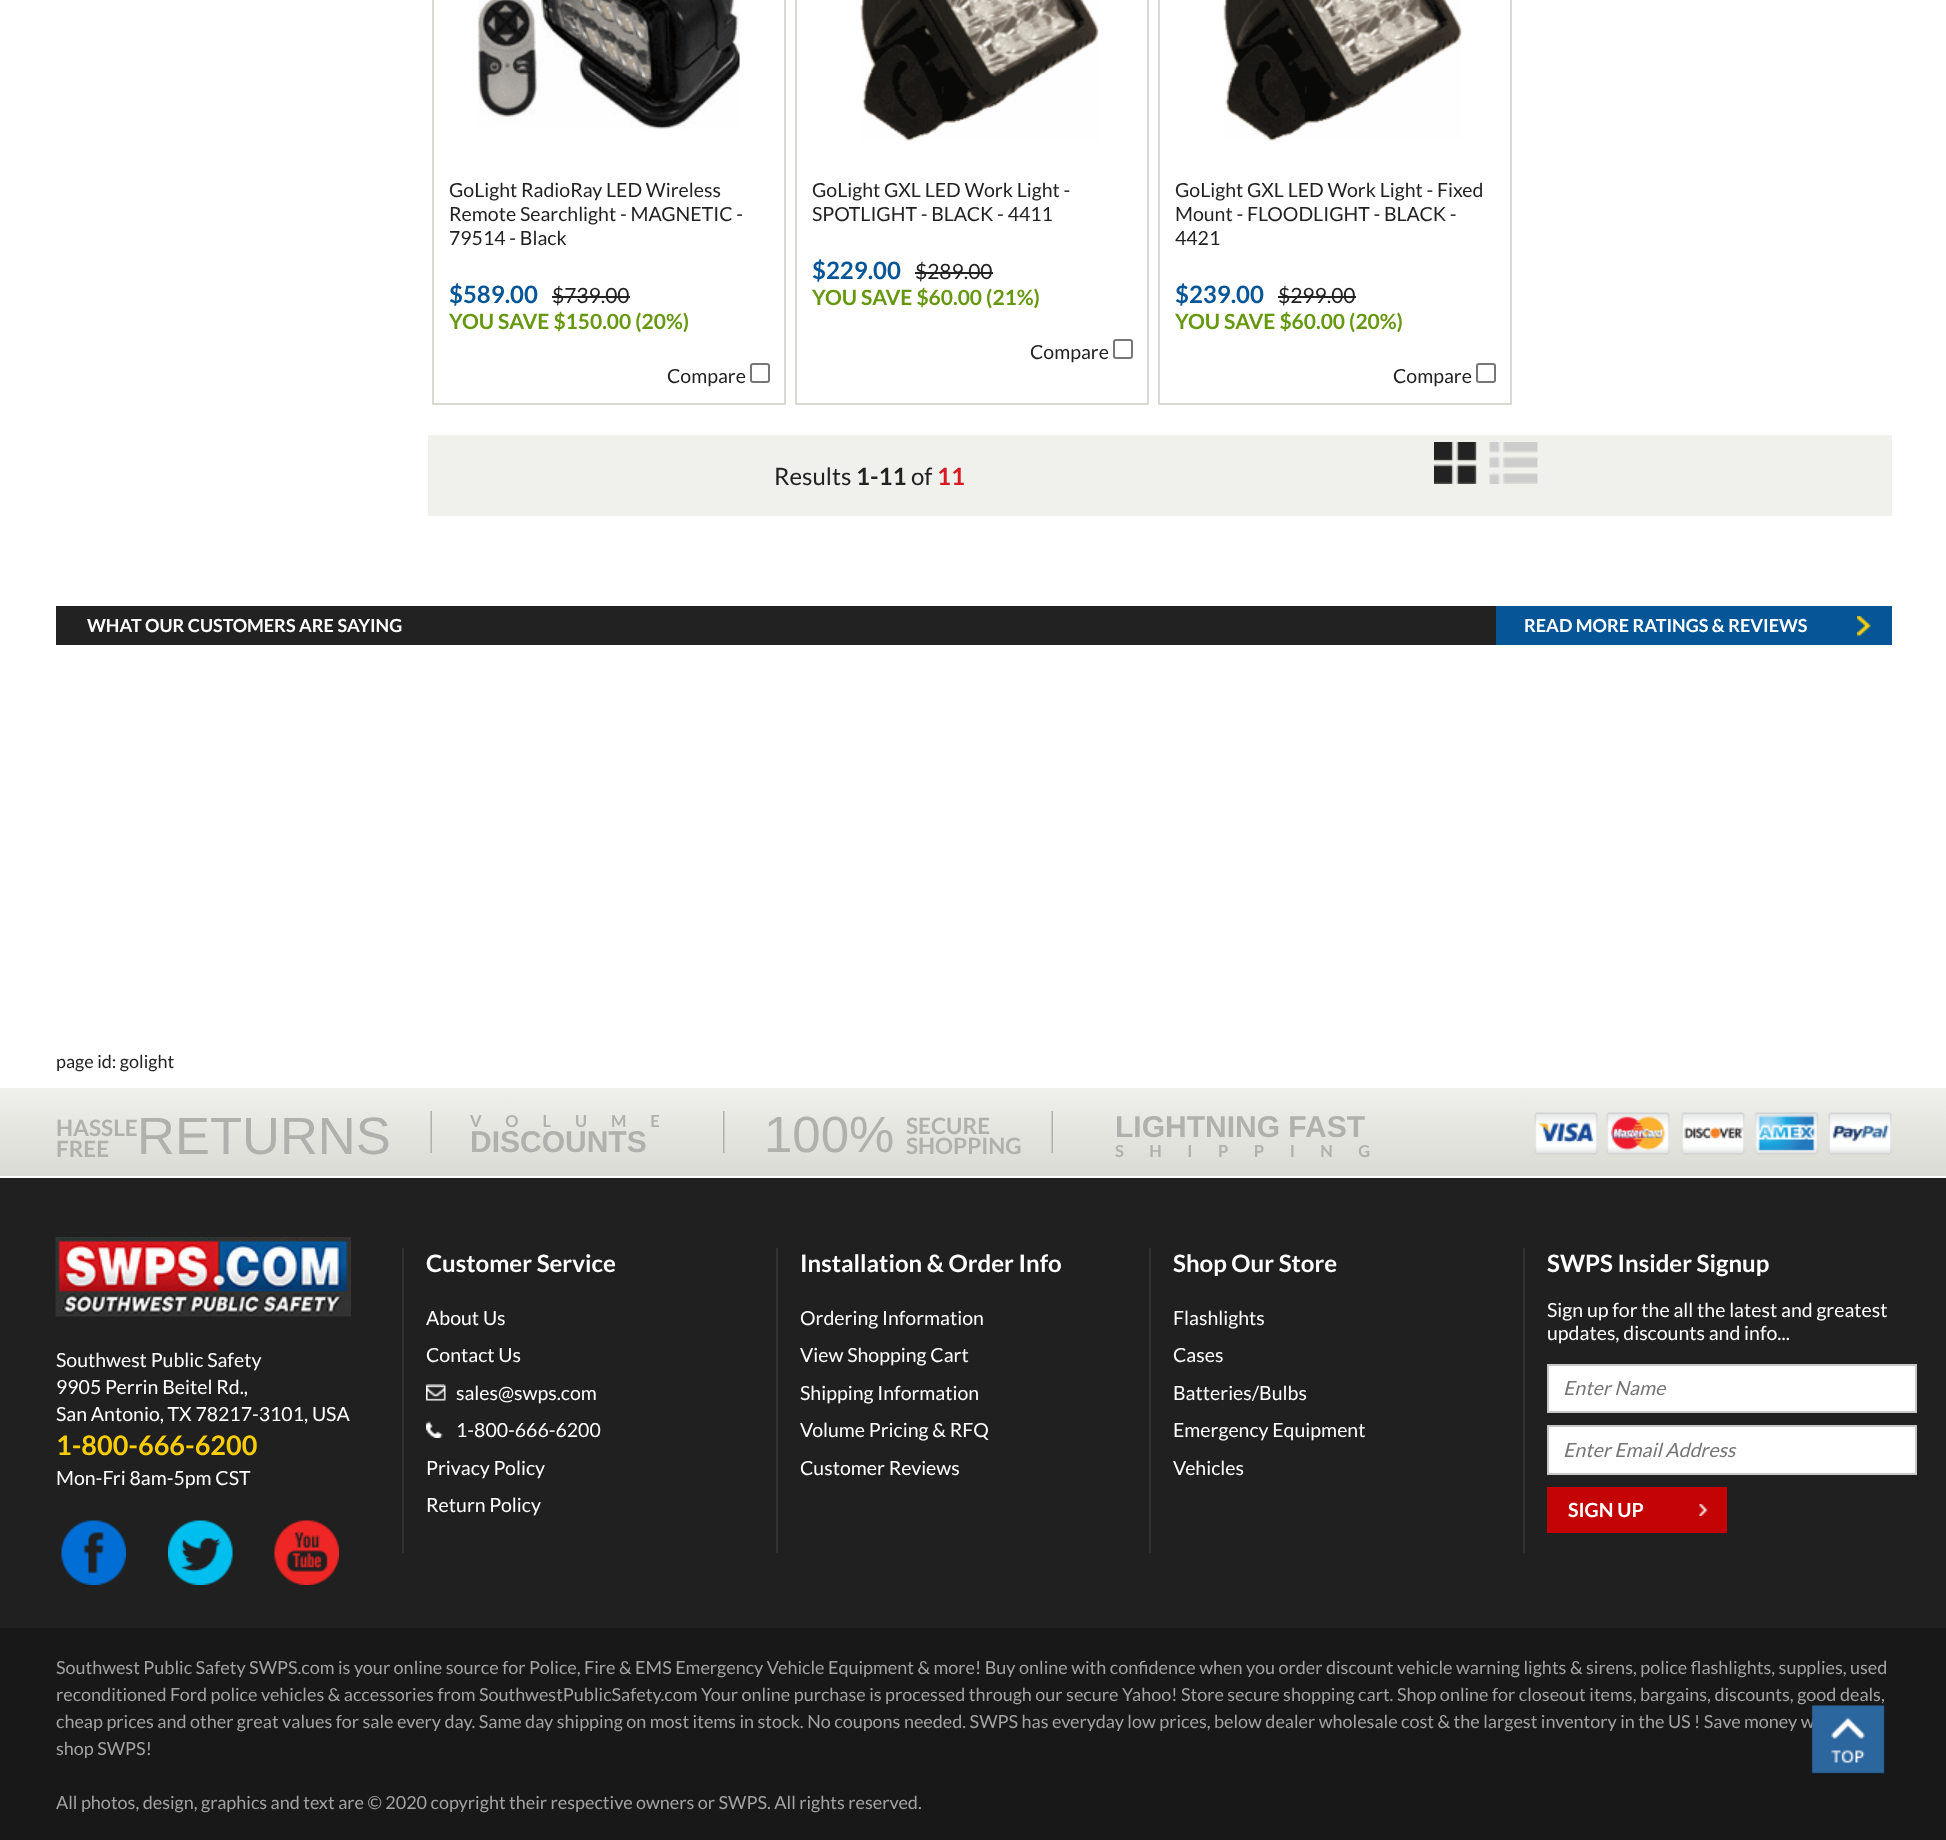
<svg xmlns="http://www.w3.org/2000/svg" width="1946" height="1840">
<defs>
<linearGradient id="g1" gradientUnits="userSpaceOnUse" x1="974" y1="1087" x2="974" y2="1176"><stop offset="0" stop-color="#f0f0ec"/><stop offset="0.5" stop-color="#e5e5e0"/><stop offset="1" stop-color="#dbdbd5"/></linearGradient>
</defs>
<rect width="100%" height="100%" fill="#fff"/>
<rect x="433" y="-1" width="352" height="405" fill="none" stroke="#dadad2" stroke-width="2"/>
<image x="478" y="0" width="262" height="129" href="media/1.png"/>
<text x="449" y="197" style="font-family:Lato;font-size:19.5px;fill:#222">GoLight RadioRay LED Wireless</text>
<text x="449" y="221" style="font-family:Lato;font-size:19.5px;fill:#222">Remote Searchlight - MAGNETIC -</text>
<text x="449" y="245" style="font-family:Lato;font-size:19.5px;fill:#222">79514 - Black</text>
<text x="449" y="303" style="font-family:Lato;font-size:24px;font-weight:bold;fill:#065697">$589.00</text>
<text x="552" y="303" style="font-family:Lato;font-size:21px;fill:#222">$739.00</text>
<rect x="552" y="296" width="78" height="2" fill="#222"/>
<text x="449" y="329" style="font-family:Lato;font-size:21px;font-weight:bold;fill:#66980f">YOU SAVE $150.00 (20%)</text>
<text x="667" y="383" style="font-family:Lato;font-size:19.5px;fill:#222">Compare</text>
<rect x="751" y="364" width="18" height="18" rx="2" fill="none" stroke="#767676" stroke-width="2"/>
<rect x="796" y="-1" width="352" height="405" fill="none" stroke="#dadad2" stroke-width="2"/>
<image x="860" y="0" width="239" height="141" href="media/2.png"/>
<text x="812" y="197" style="font-family:Lato;font-size:19.5px;fill:#222">GoLight GXL LED Work Light -</text>
<text x="812" y="221" style="font-family:Lato;font-size:19.5px;fill:#222">SPOTLIGHT - BLACK - 4411</text>
<text x="812" y="279" style="font-family:Lato;font-size:24px;font-weight:bold;fill:#065697">$229.00</text>
<text x="915" y="279" style="font-family:Lato;font-size:21px;fill:#222">$289.00</text>
<rect x="915" y="272" width="78" height="2" fill="#222"/>
<text x="812" y="305" style="font-family:Lato;font-size:21px;font-weight:bold;fill:#66980f">YOU SAVE $60.00 (21%)</text>
<text x="1030" y="359" style="font-family:Lato;font-size:19.5px;fill:#222">Compare</text>
<rect x="1114" y="340" width="18" height="18" rx="2" fill="none" stroke="#767676" stroke-width="2"/>
<rect x="1159" y="-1" width="352" height="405" fill="none" stroke="#dadad2" stroke-width="2"/>
<image x="1223" y="0" width="239" height="141" href="media/3.png"/>
<text x="1175" y="197" style="font-family:Lato;font-size:19.5px;fill:#222">GoLight GXL LED Work Light - Fixed</text>
<text x="1175" y="221" style="font-family:Lato;font-size:19.5px;fill:#222">Mount - FLOODLIGHT - BLACK -</text>
<text x="1175" y="245" style="font-family:Lato;font-size:19.5px;fill:#222">4421</text>
<text x="1175" y="303" style="font-family:Lato;font-size:24px;font-weight:bold;fill:#065697">$239.00</text>
<text x="1278" y="303" style="font-family:Lato;font-size:21px;fill:#222">$299.00</text>
<rect x="1278" y="296" width="78" height="2" fill="#222"/>
<text x="1175" y="329" style="font-family:Lato;font-size:21px;font-weight:bold;fill:#66980f">YOU SAVE $60.00 (20%)</text>
<text x="1393" y="383" style="font-family:Lato;font-size:19.5px;fill:#222">Compare</text>
<rect x="1477" y="364" width="18" height="18" rx="2" fill="none" stroke="#767676" stroke-width="2"/>
<rect x="428" y="435" width="1464" height="81" fill="#f0f0ec"/>
<text x="774" y="485" style="font-family:Lato;font-size:24px;fill:#222">Results</text>
<text x="856" y="485" style="font-family:Lato;font-size:24px;font-weight:bold;fill:#222">1-11</text>
<text x="911" y="485" style="font-family:Lato;font-size:24px;fill:#222">of</text>
<text x="937" y="485" style="font-family:Lato;font-size:24px;font-weight:bold;fill:#d71921">11</text>
<image x="1434" y="442" width="104" height="42" href="media/4.png"/>
<rect x="56" y="606" width="1440" height="39" fill="#222"/>
<text x="87" y="632" style="font-family:Lato;font-size:18px;font-weight:bold;fill:#fff">WHAT OUR CUSTOMERS ARE SAYING</text>
<rect x="1496" y="606" width="396" height="39" fill="#065697"/>
<image x="1857" y="616" width="14" height="20" href="media/5.png"/>
<text x="1524" y="632" style="font-family:Lato;font-size:18px;font-weight:bold;fill:#fff">READ MORE RATINGS &amp; REVIEWS</text>
<text x="56" y="1068" style="font-family:Lato;font-size:18px;fill:#222">page id: golight</text>
<rect y="1088" width="1946" height="88" fill="url(#g1)"/>
<text x="56" y="1136" style="font-family:Lato;font-size:22.5px;font-weight:bold;fill:#b0b0ad">HASSLE</text>
<text x="56" y="1157" style="font-family:Lato;font-size:22.5px;font-weight:bold;fill:#b0b0ad">FREE</text>
<text x="137" y="1154" style="font-family:Liberation Sans;font-size:52.5px;fill:#b0b0ad">RETURNS</text>
<image x="430" y="1111" width="2" height="42" href="media/6.png"/>
<text x="470" y="1127" style="font-family:Lato;font-size:16.5px;font-weight:bold;letter-spacing:24px;fill:#b0b0ad">VOLUME</text>
<text x="470" y="1152" style="font-family:Liberation Sans;font-size:30px;font-weight:bold;fill:#b0b0ad">DISCOUNTS</text>
<image x="723" y="1111" width="2" height="42" href="media/7.png"/>
<text x="764" y="1152" style="font-family:Liberation Sans;font-size:51px;fill:#b0b0ad">100%</text>
<text x="906" y="1134" style="font-family:Lato;font-size:22.5px;font-weight:bold;fill:#b0b0ad">SECURE</text>
<text x="906" y="1154" style="font-family:Lato;font-size:22.5px;font-weight:bold;fill:#b0b0ad">SHOPPING</text>
<image x="1051" y="1111" width="2" height="42" href="media/6.png"/>
<text x="1115" y="1137" style="font-family:Liberation Sans;font-size:30px;font-weight:bold;fill:#b0b0ad">LIGHTNING FAST</text>
<text x="1115" y="1157" style="font-family:Lato;font-size:16.5px;font-weight:bold;letter-spacing:25.5px;fill:#b0b0ad">SHIPPING</text>
<image x="1534" y="1112" width="358" height="43" href="media/8.png"/>
<rect y="1178" width="1946" height="450" fill="#202020"/>
<image x="55" y="1237" width="296" height="80" href="media/9.png"/>
<text x="56" y="1367" style="font-family:Lato;font-size:19.5px;fill:#fff">Southwest Public Safety</text>
<text x="56" y="1394" style="font-family:Lato;font-size:19.5px;fill:#fff">9905 Perrin Beitel Rd.,</text>
<text x="56" y="1421" style="font-family:Lato;font-size:19.5px;fill:#fff">San Antonio, TX 78217-3101, USA</text>
<text x="56" y="1455" style="font-family:Lato;font-size:27px;font-weight:bold;fill:#f8cd03">1-800-666-6200</text>
<text x="56" y="1485" style="font-family:Lato;font-size:19.5px;fill:#fff">Mon-Fri 8am-5pm CST</text>
<image x="61" y="1520" width="65" height="65" href="media/10.png"/>
<image x="168" y="1520" width="65" height="65" href="media/11.png"/>
<image x="274" y="1520" width="65" height="65" href="media/12.png"/>
<rect x="402" y="1248" width="2" height="305" fill="#323131"/>
<text x="426" y="1272" style="font-family:Lato;font-size:24px;font-weight:bold;fill:#fff">Customer Service</text>
<text x="426" y="1325" style="font-family:Lato;font-size:19.5px;fill:#fff">About Us</text>
<text x="426" y="1362" style="font-family:Lato;font-size:19.5px;fill:#fff">Contact Us</text>
<image x="426" y="1384" width="20" height="17" href="media/13.png"/>
<text x="456" y="1400" style="font-family:Lato;font-size:19.5px;fill:#fff">sales@swps.com</text>
<image x="426" y="1421" width="17" height="17" href="media/14.png"/>
<text x="456" y="1437" style="font-family:Lato;font-size:19.5px;fill:#fff">1-800-666-6200</text>
<text x="426" y="1475" style="font-family:Lato;font-size:19.5px;fill:#fff">Privacy Policy</text>
<text x="426" y="1512" style="font-family:Lato;font-size:19.5px;fill:#fff">Return Policy</text>
<rect x="776" y="1248" width="2" height="305" fill="#323131"/>
<text x="800" y="1272" style="font-family:Lato;font-size:24px;font-weight:bold;fill:#fff">Installation &amp; Order Info</text>
<text x="800" y="1325" style="font-family:Lato;font-size:19.5px;fill:#fff">Ordering Information</text>
<text x="800" y="1362" style="font-family:Lato;font-size:19.5px;fill:#fff">View Shopping Cart</text>
<text x="800" y="1400" style="font-family:Lato;font-size:19.5px;fill:#fff">Shipping Information</text>
<text x="800" y="1437" style="font-family:Lato;font-size:19.5px;fill:#fff">Volume Pricing &amp; RFQ</text>
<text x="800" y="1475" style="font-family:Lato;font-size:19.5px;fill:#fff">Customer Reviews</text>
<rect x="1149" y="1248" width="2" height="305" fill="#323131"/>
<text x="1173" y="1272" style="font-family:Lato;font-size:24px;font-weight:bold;fill:#fff">Shop Our Store</text>
<text x="1173" y="1325" style="font-family:Lato;font-size:19.5px;fill:#fff">Flashlights</text>
<text x="1173" y="1362" style="font-family:Lato;font-size:19.5px;fill:#fff">Cases</text>
<text x="1173" y="1400" style="font-family:Lato;font-size:19.5px;fill:#fff">Batteries/Bulbs</text>
<text x="1173" y="1437" style="font-family:Lato;font-size:19.5px;fill:#fff">Emergency Equipment</text>
<text x="1173" y="1475" style="font-family:Lato;font-size:19.5px;fill:#fff">Vehicles</text>
<rect x="1523" y="1248" width="2" height="305" fill="#323131"/>
<text x="1547" y="1272" style="font-family:Lato;font-size:24px;font-weight:bold;fill:#fff">SWPS Insider Signup</text>
<text x="1547" y="1317" style="font-family:Lato;font-size:19.5px;fill:#fff">Sign up for the all the latest and greatest</text>
<text x="1547" y="1340" style="font-family:Lato;font-size:19.5px;fill:#fff">updates, discounts and info...</text>
<rect x="1548" y="1365" width="368" height="47" fill="#fff" stroke="#c7c7c6" stroke-width="2"/>
<text x="1563" y="1395" style="font-family:Lato;font-size:19.5px;font-style:italic;fill:#757575">Enter Name</text>
<rect x="1548" y="1426" width="368" height="48" fill="#fff" stroke="#c7c7c6" stroke-width="2"/>
<text x="1563" y="1457" style="font-family:Lato;font-size:19.5px;font-style:italic;fill:#757575">Enter Email Address</text>
<rect x="1547" y="1487" width="180" height="46" fill="#c40404"/>
<image x="1699" y="1504" width="9" height="12" href="media/15.png"/>
<text x="1568" y="1517" style="font-family:Lato;font-size:19.5px;font-weight:bold;fill:#fff">SIGN UP</text>
<rect y="1628" width="1946" height="212" fill="#181818"/>
<text x="56" y="1674" style="font-family:Lato;font-size:18px;fill:#a4a2a2">Southwest Public Safety SWPS.com is your online source for Police, Fire &amp; EMS Emergency Vehicle Equipment &amp; more! Buy online with confidence when you order discount vehicle warning lights &amp; sirens, police flashlights, supplies, used</text>
<text x="56" y="1701" style="font-family:Lato;font-size:18px;fill:#a4a2a2">reconditioned Ford police vehicles &amp; accessories from SouthwestPublicSafety.com Your online purchase is processed through our secure Yahoo! Store secure shopping cart. Shop online for closeout items, bargains, discounts, good deals,</text>
<text x="56" y="1728" style="font-family:Lato;font-size:18px;fill:#a4a2a2">cheap prices and other great values for sale every day. Same day shipping on most items in stock. No coupons needed. SWPS has everyday low prices, below dealer wholesale cost &amp; the largest inventory in the US ! Save money w</text>
<text x="56" y="1755" style="font-family:Lato;font-size:18px;fill:#a4a2a2">shop SWPS!</text>
<text x="56" y="1809" style="font-family:Lato;font-size:18px;fill:#a4a2a2">All photos, design, graphics and text are © 2020 copyright their respective owners or SWPS. All rights reserved.</text>
<image x="1811" y="1705" width="74" height="70" href="media/16.png"/>
</svg>
